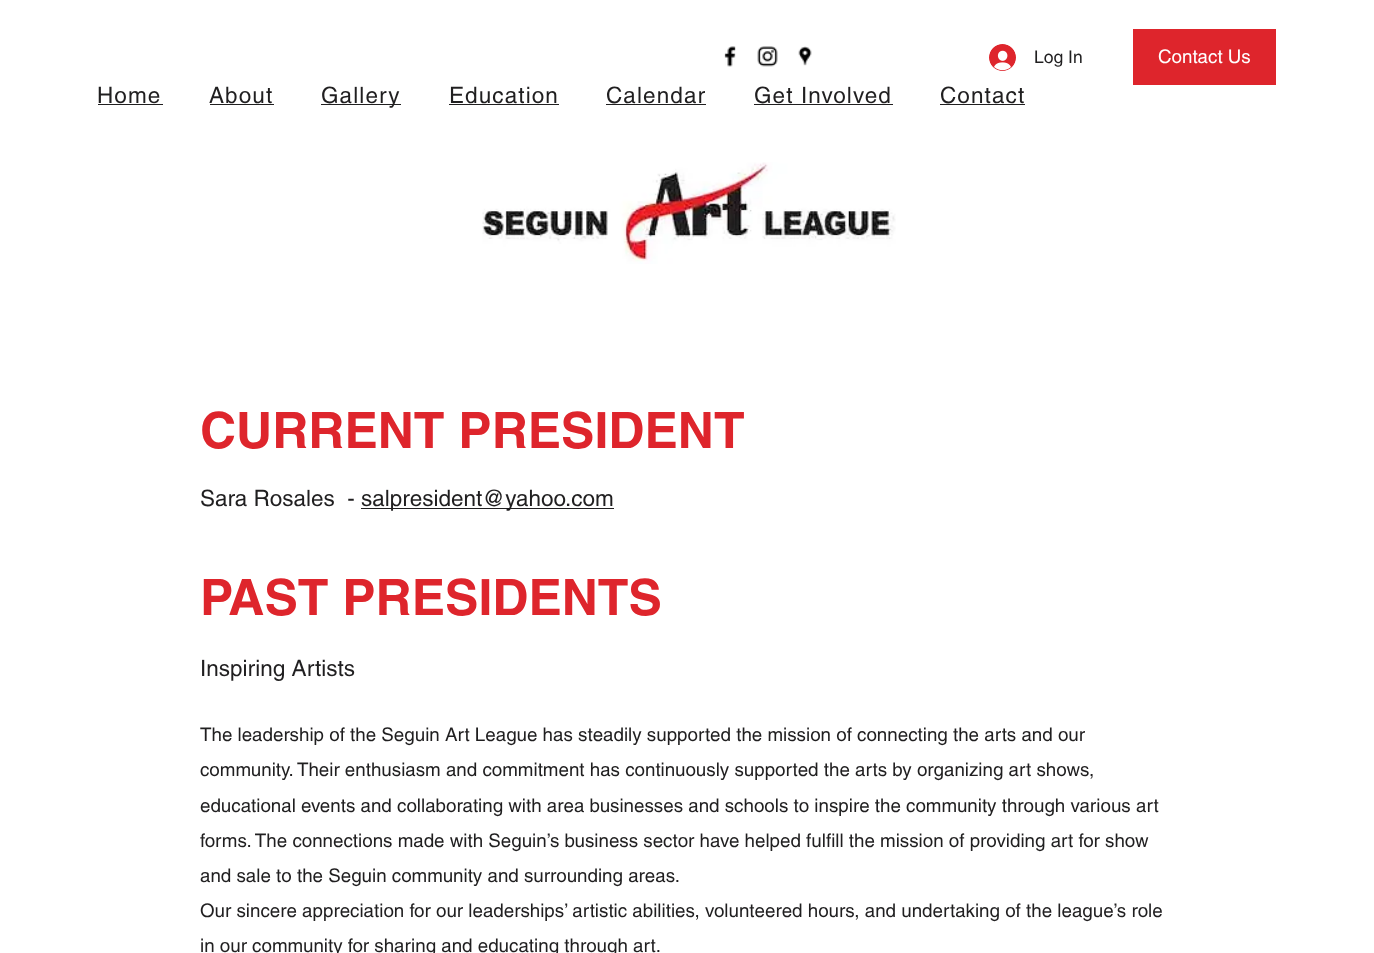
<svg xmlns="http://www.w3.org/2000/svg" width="1374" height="953">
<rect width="100%" height="100%" fill="#fff"/>
<image x="724" y="46" width="12" height="21" href="media/1.png"/>
<image x="757" y="46" width="21" height="21" href="media/2.png"/>
<image x="798" y="46" width="14" height="20" href="media/3.png"/>
<image x="989" y="44" width="27" height="27" href="media/4.png"/>
<text x="1034" y="63" style="font-family:helvetica;font-size:17.5px;fill:#201f20">Log In</text>
<rect x="1133" y="29" width="143" height="56" fill="#de252c"/>
<text x="1158" y="63" style="font-family:helvetica;font-size:18.75px;fill:#fff">Contact Us</text>
<text x="97" y="103" style="font-family:helvetica;font-size:22.5px;letter-spacing:1.1px;fill:#201f20">Home</text>
<rect x="98" y="104" width="65" height="1" fill="#201f20"/>
<text x="209" y="103" style="font-family:helvetica;font-size:22.5px;letter-spacing:1.1px;fill:#201f20">About</text>
<rect x="210" y="104" width="64" height="1" fill="#201f20"/>
<rect x="321" y="104" width="80" height="1" fill="#201f20"/>
<text x="321" y="103" style="font-family:helvetica;font-size:22.5px;letter-spacing:1.1px;fill:#201f20">Gallery</text>
<text x="449" y="103" style="font-family:helvetica;font-size:22.5px;letter-spacing:1.1px;fill:#201f20">Education</text>
<rect x="449" y="104" width="110" height="1" fill="#201f20"/>
<text x="606" y="103" style="font-family:helvetica;font-size:22.5px;letter-spacing:1.1px;fill:#201f20">Calendar</text>
<rect x="606" y="104" width="100" height="1" fill="#201f20"/>
<text x="754" y="103" style="font-family:helvetica;font-size:22.5px;letter-spacing:1.1px;fill:#201f20">Get Involved</text>
<rect x="754" y="104" width="139" height="1" fill="#201f20"/>
<text x="940" y="103" style="font-family:helvetica;font-size:22.5px;letter-spacing:1.1px;fill:#201f20">Contact</text>
<rect x="940" y="104" width="85" height="1" fill="#201f20"/>
<image x="482" y="162" width="414" height="102" href="media/5.png"/>
<text x="200" y="448" style="font-family:helvetica;font-size:50px;font-weight:bold;fill:#de252c">CURRENT PRESIDENT</text>
<text x="200" y="506" style="font-family:helvetica;font-size:22.5px;fill:#201f20" xml:space="preserve">Sara Rosales  -</text>
<rect x="361" y="508" width="253" height="1" fill="#201f20"/>
<text x="361" y="506" style="font-family:helvetica;font-size:22.5px;fill:#201f20">salpresident@yahoo.com</text>
<text x="200" y="615" style="font-family:helvetica;font-size:50px;font-weight:bold;fill:#de252c">PAST PRESIDENTS</text>
<text x="200" y="676" style="font-family:helvetica;font-size:22.5px;fill:#201f20">Inspiring Artists</text>
<text x="200" y="741" style="font-family:helvetica;font-size:18.75px;fill:#201f20">The leadership of the Seguin Art League has steadily supported the mission of connecting the arts and our</text>
<text x="200" y="776" style="font-family:helvetica;font-size:18.75px;fill:#201f20">community. Their enthusiasm and commitment has continuously supported the arts by organizing art shows,</text>
<text x="200" y="812" style="font-family:helvetica;font-size:18.75px;fill:#201f20">educational events and collaborating with area businesses and schools to inspire the community through various art</text>
<text x="200" y="847" style="font-family:helvetica;font-size:18.75px;fill:#201f20">forms. The connections made with Seguin’s business sector have helped fulfill the mission of providing art for show</text>
<text x="200" y="882" style="font-family:helvetica;font-size:18.75px;fill:#201f20">and sale to the Seguin community and surrounding areas.</text>
<text x="200" y="917" style="font-family:helvetica;font-size:18.75px;fill:#201f20">Our sincere appreciation for our leaderships’ artistic abilities, volunteered hours, and undertaking of the league’s role</text>
<text x="200" y="952" style="font-family:helvetica;font-size:18.75px;fill:#201f20">in our community for sharing and educating through art.</text>
</svg>
